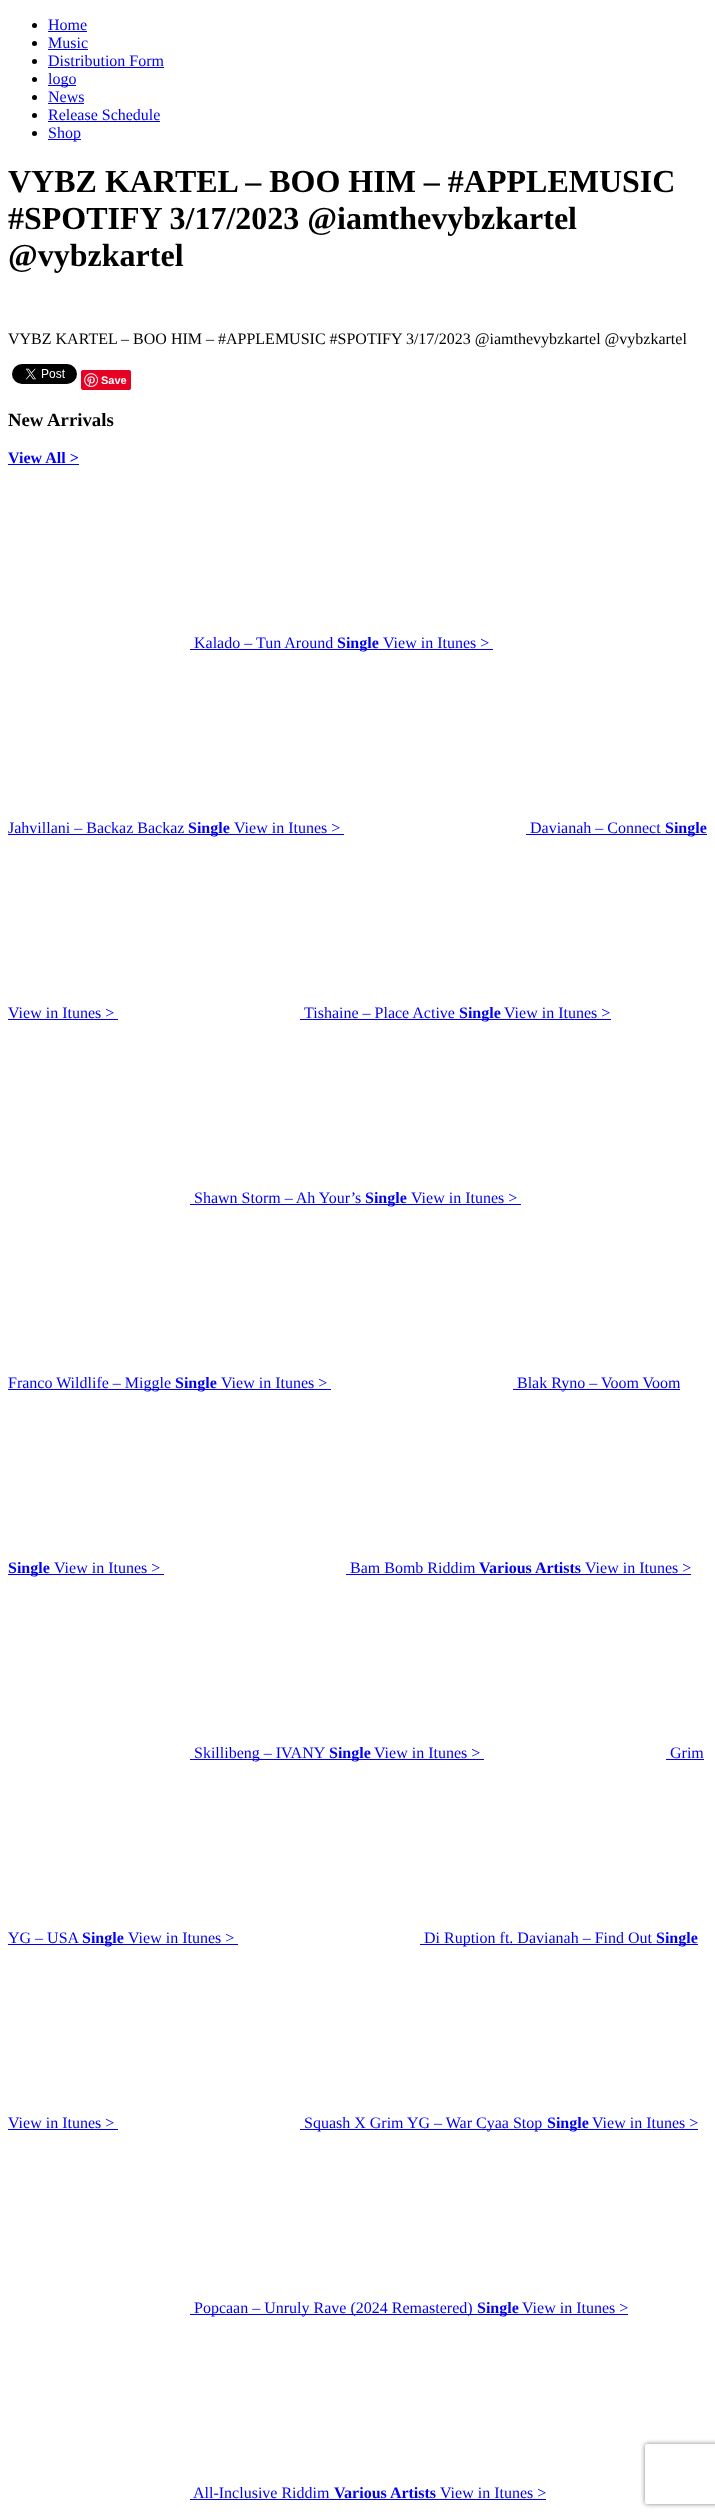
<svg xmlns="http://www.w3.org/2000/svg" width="715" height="2518">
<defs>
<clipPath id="clip1"><path d="M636 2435h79v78h-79zm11 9h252c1 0 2 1 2 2v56c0 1-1 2-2 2h-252c-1 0-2-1-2-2v-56c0-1 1-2 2-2z" clip-rule="evenodd"/></clipPath>
</defs>
<rect width="100%" height="100%" fill="#fff"/>
<circle cx="34.5" cy="25.5" r="2.5" fill="#000"/>
<text x="48" y="30" style="font-family:Liberation Serif;font-size:16px;fill:#00e">Home</text>
<rect x="48" y="31" width="39" height="1" fill="#00e"/>
<circle cx="34.5" cy="43.5" r="2.5" fill="#000"/>
<text x="48" y="48" style="font-family:Liberation Serif;font-size:16px;fill:#00e">Music</text>
<rect x="48" y="49" width="40" height="1" fill="#00e"/>
<circle cx="34.5" cy="61.5" r="2.5" fill="#000"/>
<text x="48" y="66" style="font-family:Liberation Serif;font-size:16px;fill:#00e">Distribution Form</text>
<rect x="48" y="67" width="116" height="1" fill="#00e"/>
<circle cx="34.5" cy="79.5" r="2.5" fill="#000"/>
<rect x="48" y="85" width="28" height="1" fill="#00e"/>
<text x="48" y="84" style="font-family:Liberation Serif;font-size:16px;fill:#00e">logo</text>
<circle cx="34.5" cy="97.5" r="2.5" fill="#000"/>
<text x="48" y="102" style="font-family:Liberation Serif;font-size:16px;fill:#00e">News</text>
<rect x="48" y="103" width="36" height="1" fill="#00e"/>
<circle cx="34.5" cy="115.5" r="2.5" fill="#000"/>
<text x="48" y="120" style="font-family:Liberation Serif;font-size:16px;fill:#00e">Release Schedule</text>
<rect x="48" y="121" width="112" height="1" fill="#00e"/>
<circle cx="34.5" cy="133.5" r="2.5" fill="#000"/>
<rect x="48" y="139" width="33" height="1" fill="#00e"/>
<text x="48" y="138" style="font-family:Liberation Serif;font-size:16px;fill:#00e">Shop</text>
<text x="8" y="192" style="font-family:Liberation Serif;font-size:32px;font-weight:bold;fill:#000">VYBZ KARTEL – BOO HIM – #APPLEMUSIC</text>
<text x="8" y="229" style="font-family:Liberation Serif;font-size:32px;font-weight:bold;fill:#000">#SPOTIFY 3/17/2023 @iamthevybzkartel</text>
<text x="8" y="266" style="font-family:Liberation Serif;font-size:32px;font-weight:bold;fill:#000">@vybzkartel</text>
<text x="8" y="344" style="font-family:Liberation Serif;font-size:16px;fill:#000">VYBZ KARTEL – BOO HIM – #APPLEMUSIC #SPOTIFY 3/17/2023 @iamthevybzkartel @vybzkartel</text>
<image x="12" y="364" width="65" height="20" href="media/1.png"/>
<rect x="81" y="370" width="50" height="20" rx="2" fill="#e60023"/>
<image x="84" y="373" width="14" height="14" href="media/2.png"/>
<text x="101" y="384" style="font-family:Liberation Sans;font-size:11px;font-weight:bold;fill:#fff">Save</text>
<text x="8" y="426" style="font-family:Liberation Serif;font-size:18.75px;font-weight:bold;fill:#000">New Arrivals</text>
<text x="8" y="463" style="font-family:Liberation Serif;font-size:16px;font-weight:bold;fill:#00e">View All &gt;</text>
<rect x="8" y="464" width="71" height="1" fill="#00e"/>
<text x="194" y="648" style="font-family:Liberation Serif;font-size:16px;fill:#00e">Kalado – Tun Around</text>
<rect x="190" y="649" width="303" height="1" fill="#00e"/>
<text x="337" y="648" style="font-family:Liberation Serif;font-size:16px;font-weight:bold;fill:#00e">Single</text>
<text x="383" y="648" style="font-family:Liberation Serif;font-size:16px;fill:#00e">View in Itunes &gt;</text>
<text x="8" y="833" style="font-family:Liberation Serif;font-size:16px;fill:#00e">Jahvillani – Backaz Backaz</text>
<rect x="8" y="834" width="336" height="1" fill="#00e"/>
<text x="188" y="833" style="font-family:Liberation Serif;font-size:16px;font-weight:bold;fill:#00e">Single</text>
<text x="234" y="833" style="font-family:Liberation Serif;font-size:16px;fill:#00e">View in Itunes &gt;</text>
<text x="530" y="833" style="font-family:Liberation Serif;font-size:16px;fill:#00e">Davianah – Connect</text>
<rect x="526" y="834" width="181" height="1" fill="#00e"/>
<text x="665" y="833" style="font-family:Liberation Serif;font-size:16px;font-weight:bold;fill:#00e">Single</text>
<text x="8" y="1018" style="font-family:Liberation Serif;font-size:16px;fill:#00e">View in Itunes &gt;</text>
<rect x="8" y="1019" width="110" height="1" fill="#00e"/>
<text x="304" y="1018" style="font-family:Liberation Serif;font-size:16px;fill:#00e">Tishaine – Place Active</text>
<rect x="300" y="1019" width="311" height="1" fill="#00e"/>
<text x="459" y="1018" style="font-family:Liberation Serif;font-size:16px;font-weight:bold;fill:#00e">Single</text>
<text x="504" y="1018" style="font-family:Liberation Serif;font-size:16px;fill:#00e">View in Itunes &gt;</text>
<text x="194" y="1203" style="font-family:Liberation Serif;font-size:16px;fill:#00e">Shawn Storm – Ah Your’s</text>
<rect x="190" y="1204" width="331" height="1" fill="#00e"/>
<text x="365" y="1203" style="font-family:Liberation Serif;font-size:16px;font-weight:bold;fill:#00e">Single</text>
<text x="411" y="1203" style="font-family:Liberation Serif;font-size:16px;fill:#00e">View in Itunes &gt;</text>
<rect x="8" y="1389" width="323" height="1" fill="#00e"/>
<text x="8" y="1388" style="font-family:Liberation Serif;font-size:16px;fill:#00e">Franco Wildlife – Miggle</text>
<text x="175" y="1388" style="font-family:Liberation Serif;font-size:16px;font-weight:bold;fill:#00e">Single</text>
<text x="221" y="1388" style="font-family:Liberation Serif;font-size:16px;fill:#00e">View in Itunes &gt;</text>
<rect x="513" y="1389" width="167" height="1" fill="#00e"/>
<text x="517" y="1388" style="font-family:Liberation Serif;font-size:16px;fill:#00e">Blak Ryno – Voom Voom</text>
<rect x="8" y="1574" width="156" height="1" fill="#00e"/>
<text x="8" y="1573" style="font-family:Liberation Serif;font-size:16px;font-weight:bold;fill:#00e">Single</text>
<text x="54" y="1573" style="font-family:Liberation Serif;font-size:16px;fill:#00e">View in Itunes &gt;</text>
<text x="350" y="1573" style="font-family:Liberation Serif;font-size:16px;fill:#00e">Bam Bomb Riddim</text>
<text x="479" y="1573" style="font-family:Liberation Serif;font-size:16px;font-weight:bold;fill:#00e">Various Artists</text>
<text x="585" y="1573" style="font-family:Liberation Serif;font-size:16px;fill:#00e">View in Itunes &gt;</text>
<rect x="346" y="1574" width="345" height="1" fill="#00e"/>
<rect x="190" y="1759" width="180" height="1" fill="#00e"/>
<text x="194" y="1758" style="font-family:Liberation Serif;font-size:16px;fill:#00e">Skillibeng – IVANY</text>
<text x="329" y="1758" style="font-family:Liberation Serif;font-size:16px;font-weight:bold;fill:#00e">Single</text>
<rect x="370" y="1759" width="114" height="1" fill="#00e"/>
<text x="374" y="1758" style="font-family:Liberation Serif;font-size:16px;fill:#00e">View in Itunes &gt;</text>
<text x="670" y="1758" style="font-family:Liberation Serif;font-size:16px;fill:#00e">Grim</text>
<rect x="666" y="1759" width="38" height="1" fill="#00e"/>
<text x="8" y="1943" style="font-family:Liberation Serif;font-size:16px;fill:#00e">YG – USA</text>
<rect x="8" y="1944" width="230" height="1" fill="#00e"/>
<text x="82" y="1943" style="font-family:Liberation Serif;font-size:16px;font-weight:bold;fill:#00e">Single</text>
<text x="128" y="1943" style="font-family:Liberation Serif;font-size:16px;fill:#00e">View in Itunes &gt;</text>
<rect x="420" y="1944" width="278" height="1" fill="#00e"/>
<text x="424" y="1943" style="font-family:Liberation Serif;font-size:16px;fill:#00e">Di Ruption ft. Davianah – Find Out</text>
<text x="656" y="1943" style="font-family:Liberation Serif;font-size:16px;font-weight:bold;fill:#00e">Single</text>
<text x="8" y="2128" style="font-family:Liberation Serif;font-size:16px;fill:#00e">View in Itunes &gt;</text>
<rect x="8" y="2129" width="110" height="1" fill="#00e"/>
<rect x="300" y="2129" width="398" height="1" fill="#00e"/>
<text x="304" y="2128" style="font-family:Liberation Serif;font-size:16px;fill:#00e">Squash X Grim YG – War Cyaa Stop</text>
<text x="547" y="2128" style="font-family:Liberation Serif;font-size:16px;font-weight:bold;fill:#00e">Single</text>
<text x="592" y="2128" style="font-family:Liberation Serif;font-size:16px;fill:#00e">View in Itunes &gt;</text>
<rect x="190" y="2314" width="438" height="1" fill="#00e"/>
<text x="194" y="2313" style="font-family:Liberation Serif;font-size:16px;fill:#00e">Popcaan – Unruly Rave (2024 Remastered)</text>
<text x="477" y="2313" style="font-family:Liberation Serif;font-size:16px;font-weight:bold;fill:#00e">Single</text>
<text x="522" y="2313" style="font-family:Liberation Serif;font-size:16px;fill:#00e">View in Itunes &gt;</text>
<text x="193" y="2498" style="font-family:Liberation Serif;font-size:16px;fill:#00e">All-Inclusive Riddim</text>
<text x="334" y="2498" style="font-family:Liberation Serif;font-size:16px;font-weight:bold;fill:#00e">Various Artists</text>
<text x="440" y="2498" style="font-family:Liberation Serif;font-size:16px;fill:#00e">View in Itunes &gt;</text>
<rect x="190" y="2499" width="356" height="1" fill="#00e"/>
<g clip-path="url(#clip1)">
<rect x="645" y="2444" width="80" height="60" rx="2" fill="#808080" filter="blur(2.5px)"/>
</g>
</svg>
